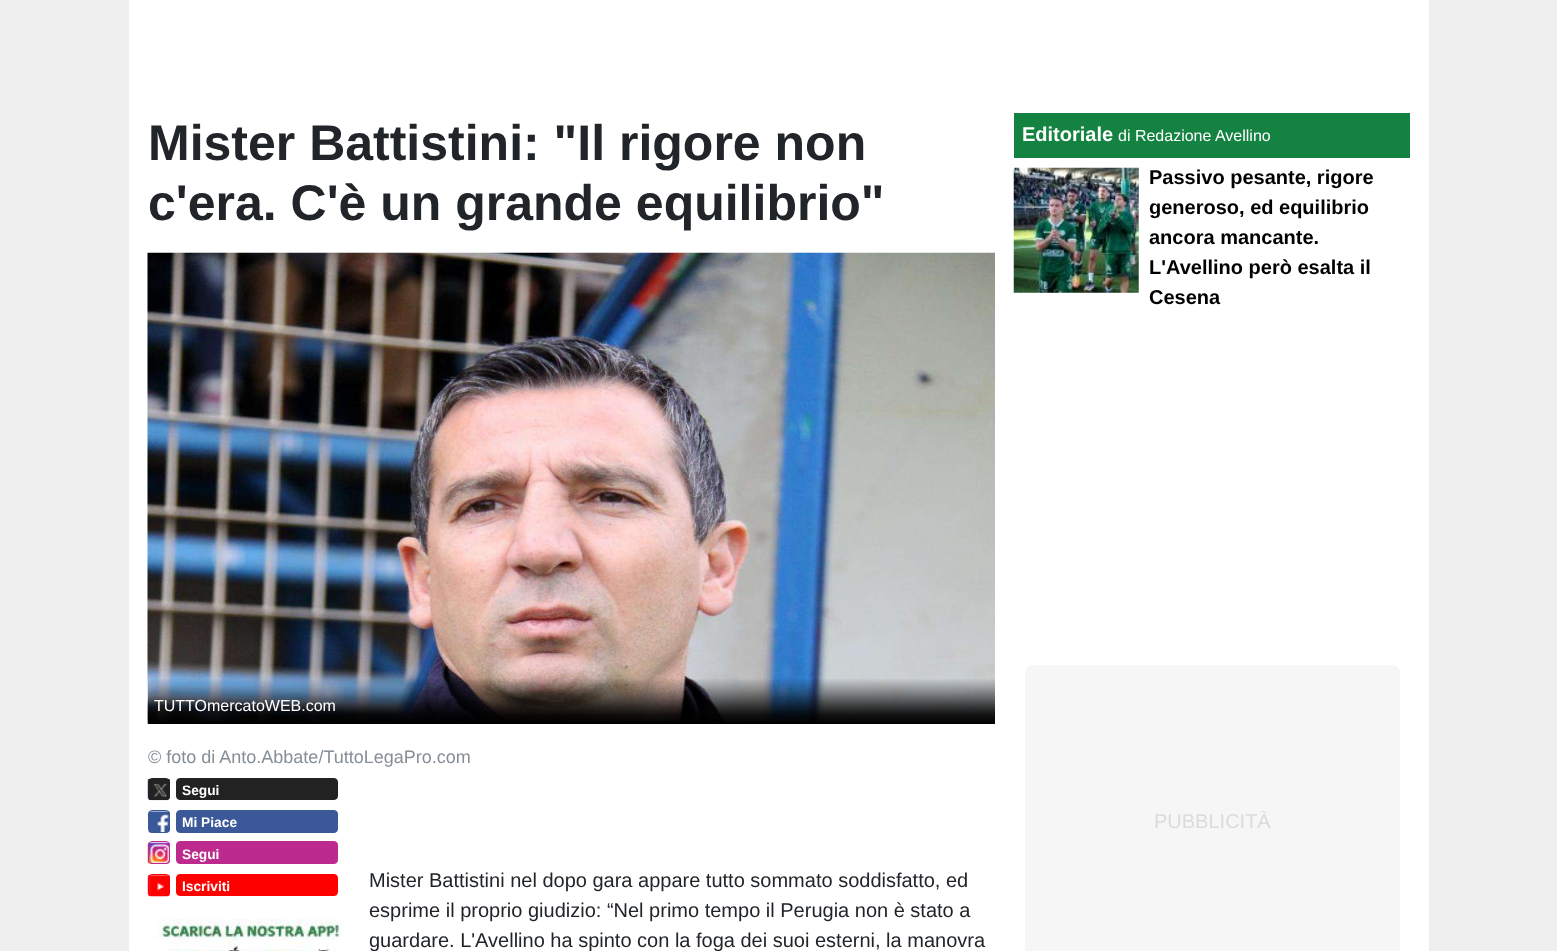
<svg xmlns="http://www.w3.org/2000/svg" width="1557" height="951">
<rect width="100%" height="100%" fill="#efefef"/>
<rect x="129" width="1300" height="951" fill="#fff"/>
<text x="148" y="160" style="font-family:Liberation Sans;font-size:50px;font-weight:bold;fill:#212529">Mister Battistini: "Il rigore non</text>
<text x="148" y="220" style="font-family:Liberation Sans;font-size:50px;font-weight:bold;fill:#212529">c'era. C'è un grande equilibrio"</text>
<image x="147" y="252" width="848" height="472" href="media/1.png"/>
<text x="154" y="711" style="font-family:Liberation Sans;font-size:16px;fill:#fff">TUTTOmercatoWEB.com</text>
<text x="148" y="763" style="font-family:Liberation Sans;font-size:18px;fill:#868e96">© foto di Anto.Abbate/TuttoLegaPro.com</text>
<image x="147" y="779" width="23" height="22" href="media/2.png"/>
<rect x="148.5" y="778.5" width="21" height="21" rx="3.5" fill="none" stroke="#222"/>
<rect x="176.5" y="778.5" width="161" height="21" rx="3.5" fill="#222" stroke="#222"/>
<text x="182" y="795" style="font-family:Liberation Sans;font-size:13.75px;font-weight:bold;fill:#fff">Segui</text>
<image x="148" y="811" width="22" height="22" href="media/3.png"/>
<rect x="148.5" y="810.5" width="21" height="22" rx="3.5" fill="none" stroke="#3b5998"/>
<rect x="176.5" y="810.5" width="161" height="22" rx="3.5" fill="#3b5998" stroke="#3b5998"/>
<text x="182" y="827" style="font-family:Liberation Sans;font-size:13.75px;font-weight:bold;fill:#fff">Mi Piace</text>
<image x="147" y="842" width="23" height="22" href="media/4.png"/>
<rect x="148.5" y="841.5" width="21" height="22" rx="3.5" fill="none" stroke="#bc2a8d"/>
<rect x="176.5" y="841.5" width="161" height="22" rx="3.5" fill="#bc2a8d" stroke="#bc2a8d"/>
<text x="182" y="859" style="font-family:Liberation Sans;font-size:13.75px;font-weight:bold;fill:#fff">Segui</text>
<image x="147" y="875" width="23" height="22" href="media/5.png"/>
<rect x="148.5" y="874.5" width="21" height="21" rx="3.5" fill="none" stroke="#f00"/>
<rect x="176.5" y="874.5" width="161" height="21" rx="3.5" fill="#f00" stroke="#f00"/>
<text x="182" y="891" style="font-family:Liberation Sans;font-size:13.75px;font-weight:bold;fill:#fff">Iscriviti</text>
<image x="154" y="919" width="189" height="32" href="media/6.png"/>
<text x="369" y="887" style="font-family:Liberation Sans;font-size:20px;fill:#212529">Mister Battistini nel dopo gara appare tutto sommato soddisfatto, ed</text>
<text x="369" y="917" style="font-family:Liberation Sans;font-size:20px;fill:#212529">esprime il proprio giudizio: “Nel primo tempo il Perugia non è stato a</text>
<text x="369" y="947" style="font-family:Liberation Sans;font-size:20px;fill:#212529">guardare. L'Avellino ha spinto con la foga dei suoi esterni, la manovra</text>
<rect x="1014" y="113" width="396" height="45" fill="#148240"/>
<text x="1022" y="141" style="font-family:Liberation Sans;font-size:20px;font-weight:bold;fill:#fff">Editoriale</text>
<text x="1118" y="141" style="font-family:Liberation Sans;font-size:16px;fill:#fff">di Redazione Avellino</text>
<image x="1013" y="167" width="126" height="126" href="media/7.png"/>
<text x="1149" y="184" style="font-family:Liberation Sans;font-size:20px;font-weight:bold;fill:#000">Passivo pesante, rigore</text>
<text x="1149" y="214" style="font-family:Liberation Sans;font-size:20px;font-weight:bold;fill:#000">generoso, ed equilibrio</text>
<text x="1149" y="244" style="font-family:Liberation Sans;font-size:20px;font-weight:bold;fill:#000">ancora mancante.</text>
<text x="1149" y="274" style="font-family:Liberation Sans;font-size:20px;font-weight:bold;fill:#000">L'Avellino però esalta il</text>
<text x="1149" y="304" style="font-family:Liberation Sans;font-size:20px;font-weight:bold;fill:#000">Cesena</text>
<rect x="1025" y="665" width="375" height="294" rx="8" fill="#f6f6f6"/>
<text x="1154" y="828" style="font-family:Liberation Sans;font-size:20px;fill:#dbdbdb">PUBBLICITÀ</text>
</svg>
